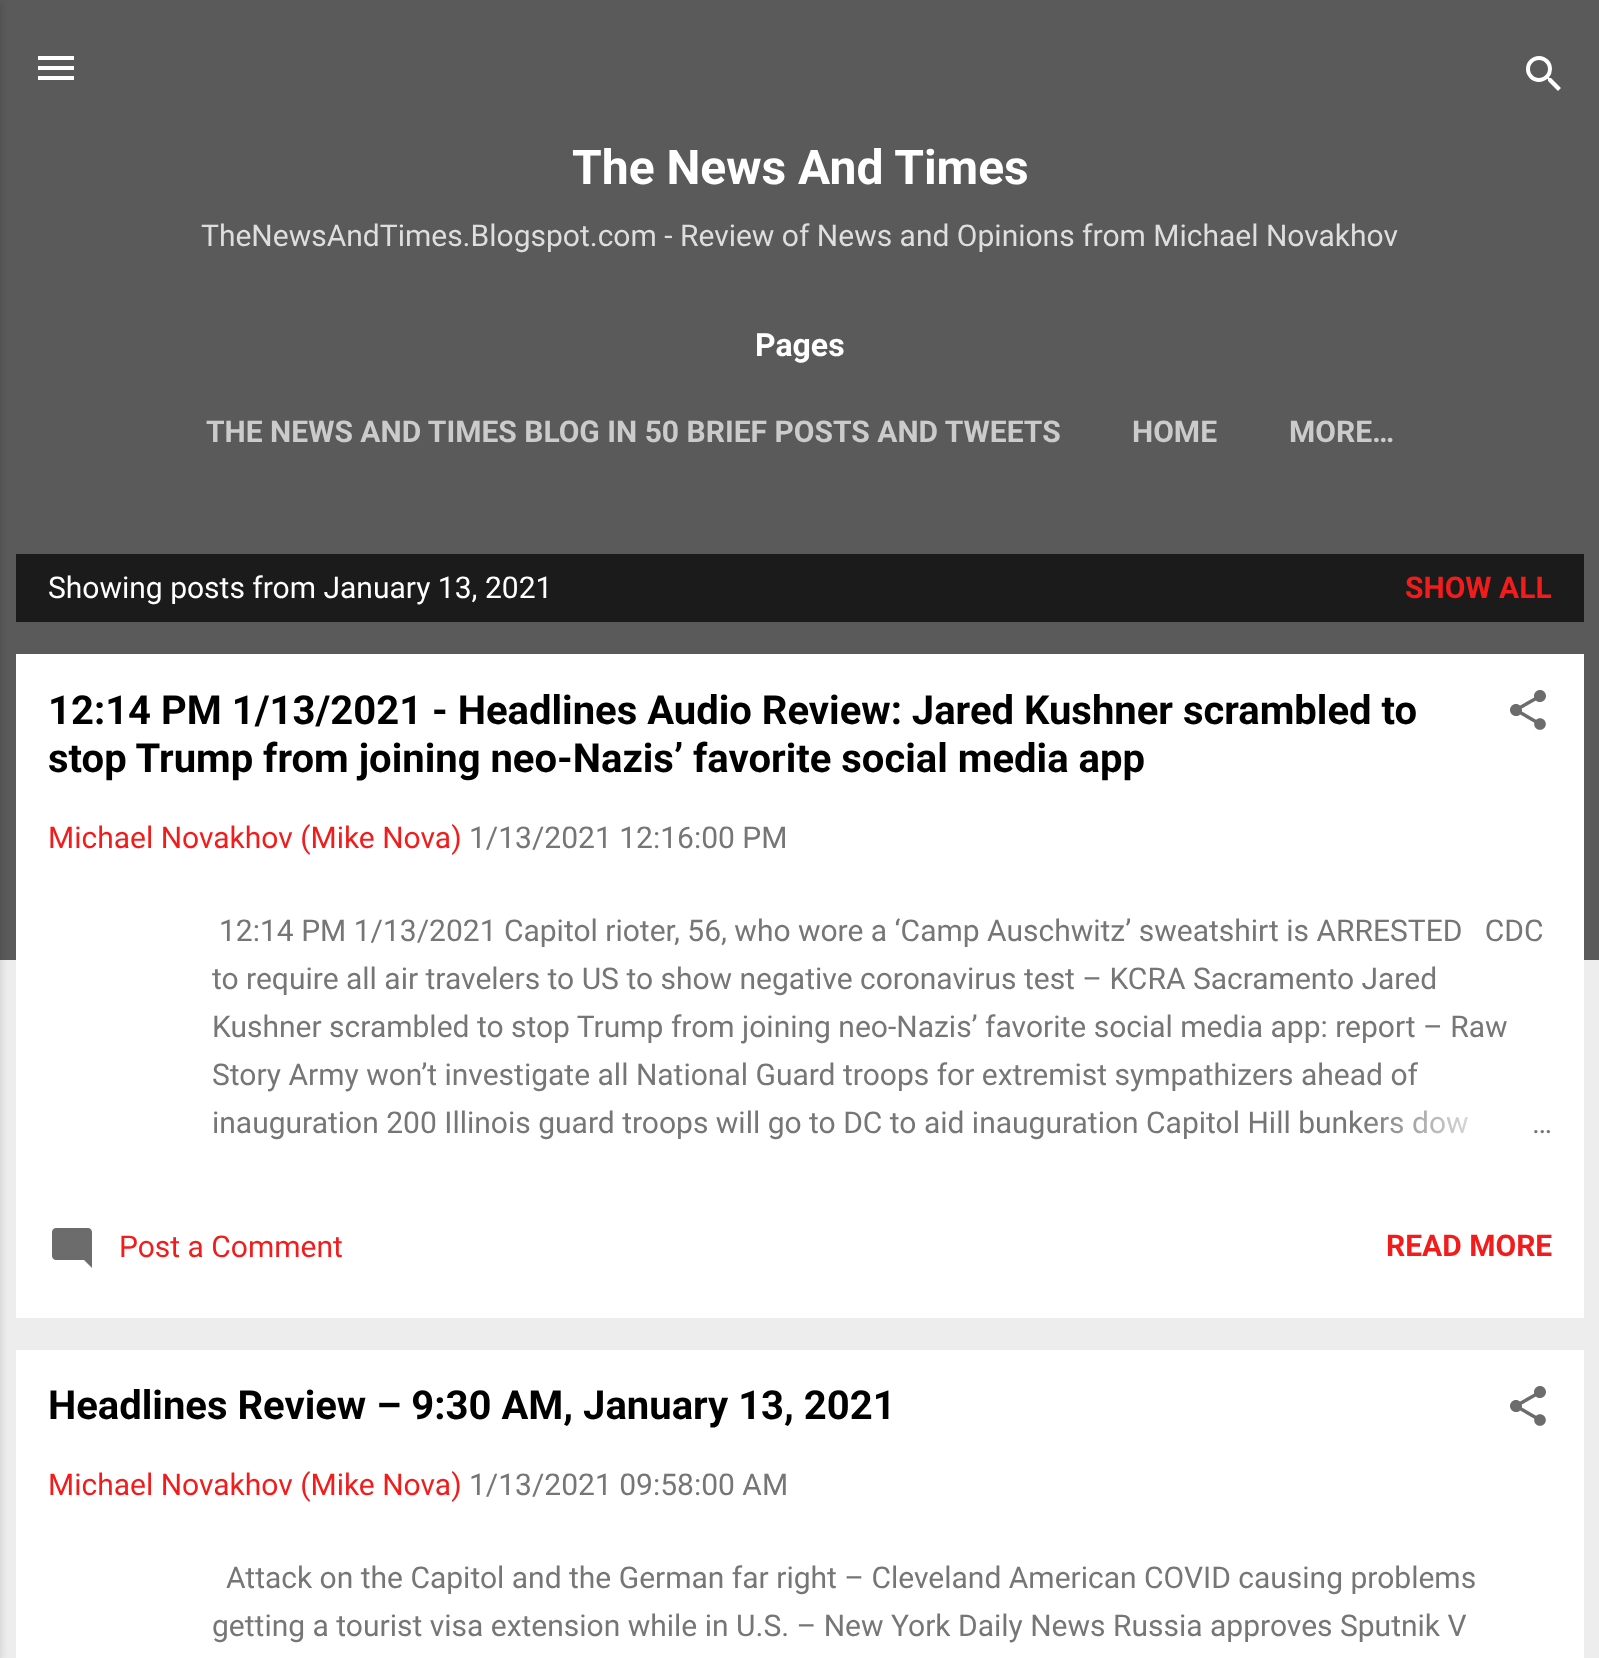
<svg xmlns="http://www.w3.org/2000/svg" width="1599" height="1658">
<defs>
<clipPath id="clip1"><rect x="212" y="908" width="1340" height="240"/></clipPath>
<linearGradient id="g1" gradientUnits="userSpaceOnUse" x1="1552" y1="1124" x2="1360" y2="1124"><stop offset="0" stop-color="#fff"/><stop offset="0.2" stop-color="#fff"/><stop offset="1" stop-color="#fff" stop-opacity="0"/></linearGradient>
</defs>
<rect width="100%" height="100%" fill="#ededed"/>
<rect width="1599" height="960" fill="#5a5a5a"/>
<rect x="-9" y="2" width="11" height="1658" fill="#0000001a" filter="blur(3px)"/>
<image x="38" y="56" width="36" height="24" href="media/1.png"/>
<image x="1526" y="56" width="35" height="35" href="media/2.png"/>
<text x="572" y="184" style="font-family:Roboto;font-size:48px;font-weight:bold;fill:#fff">The News And Times</text>
<text x="201" y="246" style="font-family:Roboto;font-size:30px;fill:#dedede">TheNewsAndTimes.Blogspot.com - Review of News and Opinions from Michael Novakhov</text>
<text x="755" y="356" style="font-family:Roboto;font-size:32px;font-weight:bold;fill:#fff">Pages</text>
<text x="206" y="442" style="font-family:Roboto;font-size:30px;font-weight:bold;fill:#cbcbcb">THE NEWS AND TIMES BLOG IN 50 BRIEF POSTS AND TWEETS</text>
<text x="1132" y="442" style="font-family:Roboto;font-size:30px;font-weight:bold;fill:#cbcbcb">HOME</text>
<text x="1289" y="442" style="font-family:Roboto;font-size:30px;font-weight:bold;fill:#cbcbcb">MORE…</text>
<rect x="16" y="554" width="1568" height="68" fill="#1b1b1b"/>
<text x="48" y="598" style="font-family:Roboto;font-size:30px;fill:#fff">Showing posts from January 13, 2021</text>
<text x="1405" y="598" style="font-family:Roboto;font-size:30px;font-weight:bold;fill:#f31c1c">SHOW ALL</text>
<rect x="16" y="654" width="1568" height="664" fill="#fff"/>
<text x="48" y="724" style="font-family:Roboto;font-size:40px;font-weight:bold;fill:#000">12:14 PM 1/13/2021 - Headlines Audio Review: Jared Kushner scrambled to</text>
<text x="48" y="772" style="font-family:Roboto;font-size:40px;font-weight:bold;fill:#000">stop Trump from joining neo-Nazis’ favorite social media app</text>
<image x="1510" y="690" width="36" height="40" href="media/3.png"/>
<text x="48" y="848" style="font-family:Roboto;font-size:30px;fill:#f31c1c">Michael Novakhov (Mike Nova)</text>
<text x="469" y="848" style="font-family:Roboto;font-size:30px;fill:#767676">1/13/2021 12:16:00 PM</text>
<text x="219" y="941" style="font-family:Roboto;font-size:30px;fill:#767676" xml:space="preserve">12:14 PM 1/13/2021 Capitol rioter, 56, who wore a ‘Camp Auschwitz’ sweatshirt is ARRESTED   CDC</text>
<g clip-path="url(#clip1)">
<text x="212" y="989" style="font-family:Roboto;font-size:30px;fill:#767676">to require all air travelers to US to show negative coronavirus test – KCRA Sacramento Jared</text>
</g>
<text x="212" y="1037" style="font-family:Roboto;font-size:30px;fill:#767676">Kushner scrambled to stop Trump from joining neo-Nazis’ favorite social media app: report – Raw</text>
<text x="212" y="1085" style="font-family:Roboto;font-size:30px;fill:#767676">Story Army won’t investigate all National Guard troops for extremist sympathizers ahead of</text>
<text x="212" y="1133" style="font-family:Roboto;font-size:30px;fill:#767676">inauguration 200 Illinois guard troops will go to DC to aid inauguration Capitol Hill bunkers dow</text>
<rect x="1364" y="1110" width="104" height="24" fill="url(#g1)"/>
<text x="1532" y="1133" style="font-family:Roboto;font-size:30px;fill:#767676">…</text>
<image x="52" y="1228" width="40" height="40" href="media/4.png"/>
<text x="119" y="1257" style="font-family:Roboto;font-size:30px;fill:#f31c1c">Post a Comment</text>
<text x="1386" y="1256" style="font-family:Roboto;font-size:30px;font-weight:bold;fill:#f31c1c">READ MORE</text>
<rect x="16" y="1350" width="1568" height="308" fill="#fff"/>
<text x="48" y="1419" style="font-family:Roboto;font-size:40px;font-weight:bold;fill:#000">Headlines Review – 9:30 AM, January 13, 2021</text>
<image x="1510" y="1386" width="36" height="40" href="media/3.png"/>
<text x="48" y="1495" style="font-family:Roboto;font-size:30px;fill:#f31c1c">Michael Novakhov (Mike Nova)</text>
<text x="469" y="1495" style="font-family:Roboto;font-size:30px;fill:#767676">1/13/2021 09:58:00 AM</text>
<text x="226" y="1588" style="font-family:Roboto;font-size:30px;fill:#767676">Attack on the Capitol and the German far right – Cleveland American COVID causing problems</text>
<text x="212" y="1636" style="font-family:Roboto;font-size:30px;fill:#767676">getting a tourist visa extension while in U.S. – New York Daily News Russia approves Sputnik V</text>
</svg>
